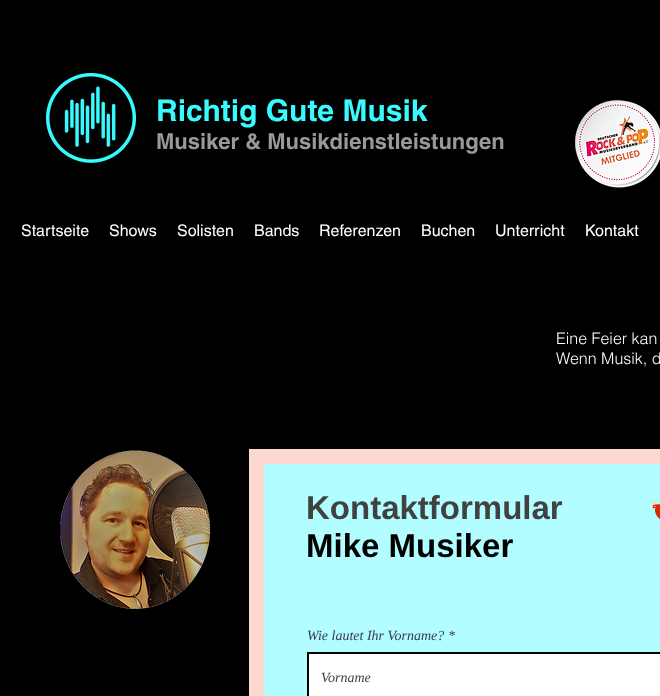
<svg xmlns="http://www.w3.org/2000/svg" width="660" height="696">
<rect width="100%" height="100%" fill="#000"/>
<image x="46" y="73" width="90" height="90" href="media/1.png"/>
<text x="156" y="121" style="font-family:helvetica;font-size:30px;font-weight:bold;fill:#39fbff">Richtig Gute Musik</text>
<text x="156" y="149" style="font-family:helvetica;font-size:22px;font-weight:bold;fill:#999">Musiker &amp; Musikdienstleistungen</text>
<text x="21" y="236" style="font-family:helvetica;font-size:16px;fill:#fff">Startseite</text>
<text x="109" y="236" style="font-family:helvetica;font-size:16px;fill:#fff">Shows</text>
<text x="177" y="236" style="font-family:helvetica;font-size:16px;fill:#fff">Solisten</text>
<text x="254" y="236" style="font-family:helvetica;font-size:16px;fill:#fff">Bands</text>
<text x="319" y="236" style="font-family:helvetica;font-size:16px;fill:#fff">Referenzen</text>
<text x="421" y="236" style="font-family:helvetica;font-size:16px;fill:#fff">Buchen</text>
<text x="495" y="236" style="font-family:helvetica;font-size:16px;fill:#fff">Unterricht</text>
<text x="585" y="236" style="font-family:helvetica;font-size:16px;fill:#fff">Kontakt</text>
<image x="574" y="100" width="86" height="88" href="media/2.png"/>
<text x="556" y="344" style="font-family:helvetica;font-size:16px;font-weight:300;fill:#fff">Eine Feier kan</text>
<text x="556" y="364" style="font-family:helvetica;font-size:16px;font-weight:300;fill:#fff">Wenn Musik, d</text>
<image x="60" y="450" width="151" height="159" href="media/3.png"/>
<rect x="256.5" y="456.5" width="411" height="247" fill="#b1fdff" stroke="#fcd8d1" stroke-width="15"/>
<text x="306" y="519" style="font-family:Liberation Sans;font-size:33px;font-weight:bold;fill:#414141">Kontaktformular</text>
<text x="306" y="557" style="font-family:Liberation Sans;font-size:33px;font-weight:bold;fill:#000">Mike Musiker</text>
<image x="652" y="501" width="8" height="18" href="media/4.png"/>
<text x="307" y="640" style="font-family:Liberation Serif;font-size:14px;font-style:italic;fill:#373b4d">Wie lautet Ihr Vorname?</text>
<text x="448" y="640" style="font-family:Liberation Serif;font-size:14px;font-style:italic;fill:#414141">*</text>
<rect x="308" y="653" width="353" height="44" fill="#fff" stroke="#000" stroke-width="2"/>
<text x="321" y="682" style="font-family:Liberation Serif;font-size:14px;font-style:italic;fill:#414141">Vorname</text>
</svg>
